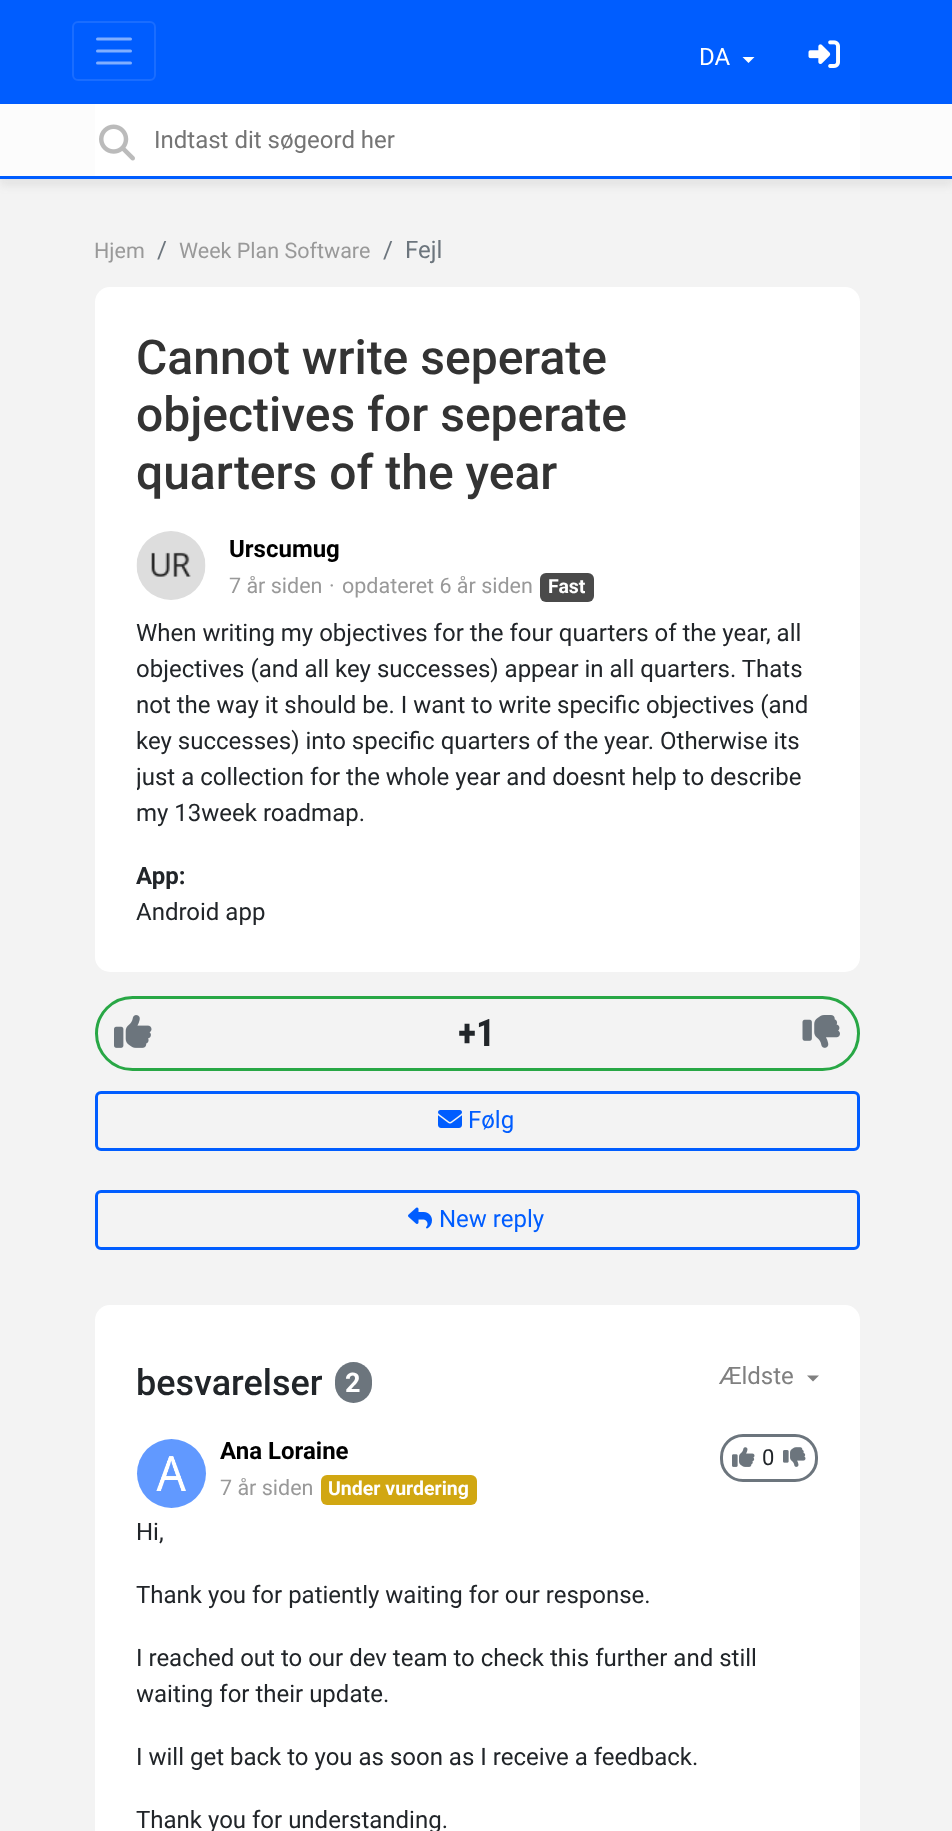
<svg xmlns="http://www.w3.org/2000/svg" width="952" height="1831">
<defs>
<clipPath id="clip1"><rect x="137" y="615" width="681" height="216"/></clipPath>
<clipPath id="clip2"><rect x="137" y="1515" width="681" height="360"/></clipPath>
</defs>
<rect width="100%" height="100%" fill="#f3f3f3"/>
<rect width="952" height="104" fill="#005dff"/>
<rect x="73" y="22" width="82" height="58" rx="5" fill="none" stroke="#1a6dff" stroke-width="2"/>
<path d="M97.5 39h33m-33 12h33m-33 12h33" fill="none" stroke="#80aeff" stroke-width="3" stroke-linecap="round"/>
<text x="699" y="65" style="font-family:Roboto;font-size:24px;fill:#fff">DA</text>
<path d="M742.5 57h12l-6 6z" fill="#fff"/>
<image x="808" y="40" width="32" height="28" href="media/1.png"/>
<rect y="111" width="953" height="75" fill="#6464641a" filter="blur(4px)"/>
<rect y="104" width="952" height="72" fill="#fcfcfc"/>
<rect y="176" width="952" height="3" fill="#005dff"/>
<rect x="95" y="104" width="765" height="72" fill="#fff"/>
<image x="99" y="124" width="36" height="37" href="media/2.png"/>
<text x="154" y="148" style="font-family:Roboto;font-size:24px;fill:#757575">Indtast dit søgeord her</text>
<text x="94" y="258" style="font-family:Roboto;font-size:21.5px;fill:#999">Hjem</text>
<text x="157" y="258" style="font-family:Roboto;font-size:24px;fill:#6c757d">/</text>
<text x="179" y="258" style="font-family:Roboto;font-size:21.5px;fill:#999">Week Plan Software</text>
<text x="383" y="258" style="font-family:Roboto;font-size:24px;fill:#6c757d">/</text>
<text x="405" y="258" style="font-family:Roboto;font-size:24px;fill:#6c757d">Fejl</text>
<rect x="95" y="287" width="765" height="685" rx="15" fill="#fff"/>
<text x="136" y="374" style="font-family:Roboto;font-size:48px;font-weight:500;fill:#333">Cannot write seperate</text>
<text x="136" y="431" style="font-family:Roboto;font-size:48px;font-weight:500;fill:#333">objectives for seperate</text>
<text x="136" y="489" style="font-family:Roboto;font-size:48px;font-weight:500;fill:#333">quarters of the year</text>
<image x="136" y="531" width="70" height="69" href="media/3.png"/>
<text x="229" y="557" style="font-family:Roboto;font-size:24px;font-weight:bold;fill:#000">Urscumug</text>
<text x="229" y="593" style="font-family:Roboto;font-size:21.5px;fill:#999">7 år siden</text>
<text x="329" y="593" style="font-family:Roboto;font-size:21.5px;fill:#999">·</text>
<text x="342" y="593" style="font-family:Roboto;font-size:21.5px;fill:#999">opdateret 6 år siden</text>
<rect x="540" y="573" width="54" height="29" rx="6" fill="#4a4a4a"/>
<text x="548" y="593" style="font-family:Roboto;font-size:19.5px;font-weight:bold;fill:#fff">Fast</text>
<text x="136" y="641" style="font-family:Roboto;font-size:24px;fill:#212529">When writing my objectives for the four quarters of the year, all</text>
<g clip-path="url(#clip1)">
<text x="136" y="677" style="font-family:Roboto;font-size:24px;fill:#212529">objectives (and all key successes) appear in all quarters. Thats</text>
</g>
<text x="136" y="713" style="font-family:Roboto;font-size:24px;fill:#212529">not the way it should be. I want to write specific objectives (and</text>
<text x="136" y="749" style="font-family:Roboto;font-size:24px;fill:#212529">key successes) into specific quarters of the year. Otherwise its</text>
<g clip-path="url(#clip1)">
<text x="136" y="785" style="font-family:Roboto;font-size:24px;fill:#212529">just a collection for the whole year and doesnt help to describe</text>
</g>
<text x="136" y="821" style="font-family:Roboto;font-size:24px;fill:#212529">my 13week roadmap.</text>
<text x="136" y="884" style="font-family:Roboto;font-size:24px;font-weight:bold;fill:#212529">App:</text>
<text x="136" y="920" style="font-family:Roboto;font-size:24px;fill:#212529">Android app</text>
<rect x="96.5" y="997.5" width="762" height="72" rx="36" fill="none" stroke="#28a745" stroke-width="3"/>
<image x="114" y="1015" width="38" height="33" href="media/4.png"/>
<text x="458" y="1046" style="font-family:Roboto Condensed;font-size:38px;font-weight:bold;fill:#212529">+1</text>
<image x="802" y="1015" width="38" height="33" href="media/5.png"/>
<rect x="96.5" y="1092.5" width="762" height="57" rx="4.5" fill="none" stroke="#005dff" stroke-width="3"/>
<image x="438" y="1110" width="24" height="18" href="media/6.png"/>
<text x="468" y="1128" style="font-family:Roboto;font-size:24px;fill:#005dff">Følg</text>
<rect x="96.5" y="1191.5" width="762" height="57" rx="4.5" fill="none" stroke="#005dff" stroke-width="3"/>
<image x="408" y="1207" width="24" height="22" href="media/7.png"/>
<text x="439" y="1227" style="font-family:Roboto;font-size:24px;fill:#005dff">New reply</text>
<rect x="95" y="1305" width="765" height="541" rx="15" fill="#fff"/>
<text x="136" y="1395" style="font-family:Roboto;font-size:36px;font-weight:500;fill:#212529">besvarelser</text>
<rect x="335" y="1362" width="37" height="41" rx="18.5" fill="#6c757d"/>
<text x="345" y="1392" style="font-family:Roboto;font-size:27px;font-weight:bold;fill:#fff">2</text>
<text x="719" y="1384" style="font-family:Roboto;font-size:24px;fill:#808080">Ældste</text>
<path d="M807 1375.5h12l-6 6z" fill="#808080"/>
<circle cx="171.5" cy="1473.5" r="34.5" fill="#6199ff"/>
<image x="156" y="1456" width="30" height="35" href="media/8.png"/>
<text x="220" y="1459" style="font-family:Roboto;font-size:24px;font-weight:bold;fill:#000">Ana Loraine</text>
<text x="220" y="1495" style="font-family:Roboto;font-size:21.5px;fill:#999">7 år siden</text>
<rect x="321" y="1475" width="156" height="30" rx="6" fill="#d1a712"/>
<text x="328" y="1495" style="font-family:Roboto;font-size:19.5px;font-weight:bold;fill:#fff">Under vurdering</text>
<rect x="721.5" y="1435.5" width="95" height="45" rx="21.5" fill="none" stroke="#6c757d" stroke-width="3"/>
<image x="732" y="1447" width="23" height="20" href="media/9.png"/>
<text x="762" y="1465" style="font-family:Roboto;font-size:22px;fill:#212529">0</text>
<image x="783" y="1447" width="23" height="20" href="media/10.png"/>
<text x="136" y="1540" style="font-family:Roboto;font-size:24px;fill:#212529">Hi,</text>
<text x="136" y="1603" style="font-family:Roboto;font-size:24px;fill:#212529">Thank you for patiently waiting for our response.</text>
<text x="136" y="1666" style="font-family:Roboto;font-size:24px;fill:#212529">I reached out to our dev team to check this further and still</text>
<g clip-path="url(#clip2)">
<text x="136" y="1702" style="font-family:Roboto;font-size:24px;fill:#212529">waiting for their update.</text>
</g>
<text x="136" y="1765" style="font-family:Roboto;font-size:24px;fill:#212529">I will get back to you as soon as I receive a feedback.</text>
<text x="136" y="1828" style="font-family:Roboto;font-size:24px;fill:#212529">Thank you for understanding.</text>
</svg>
